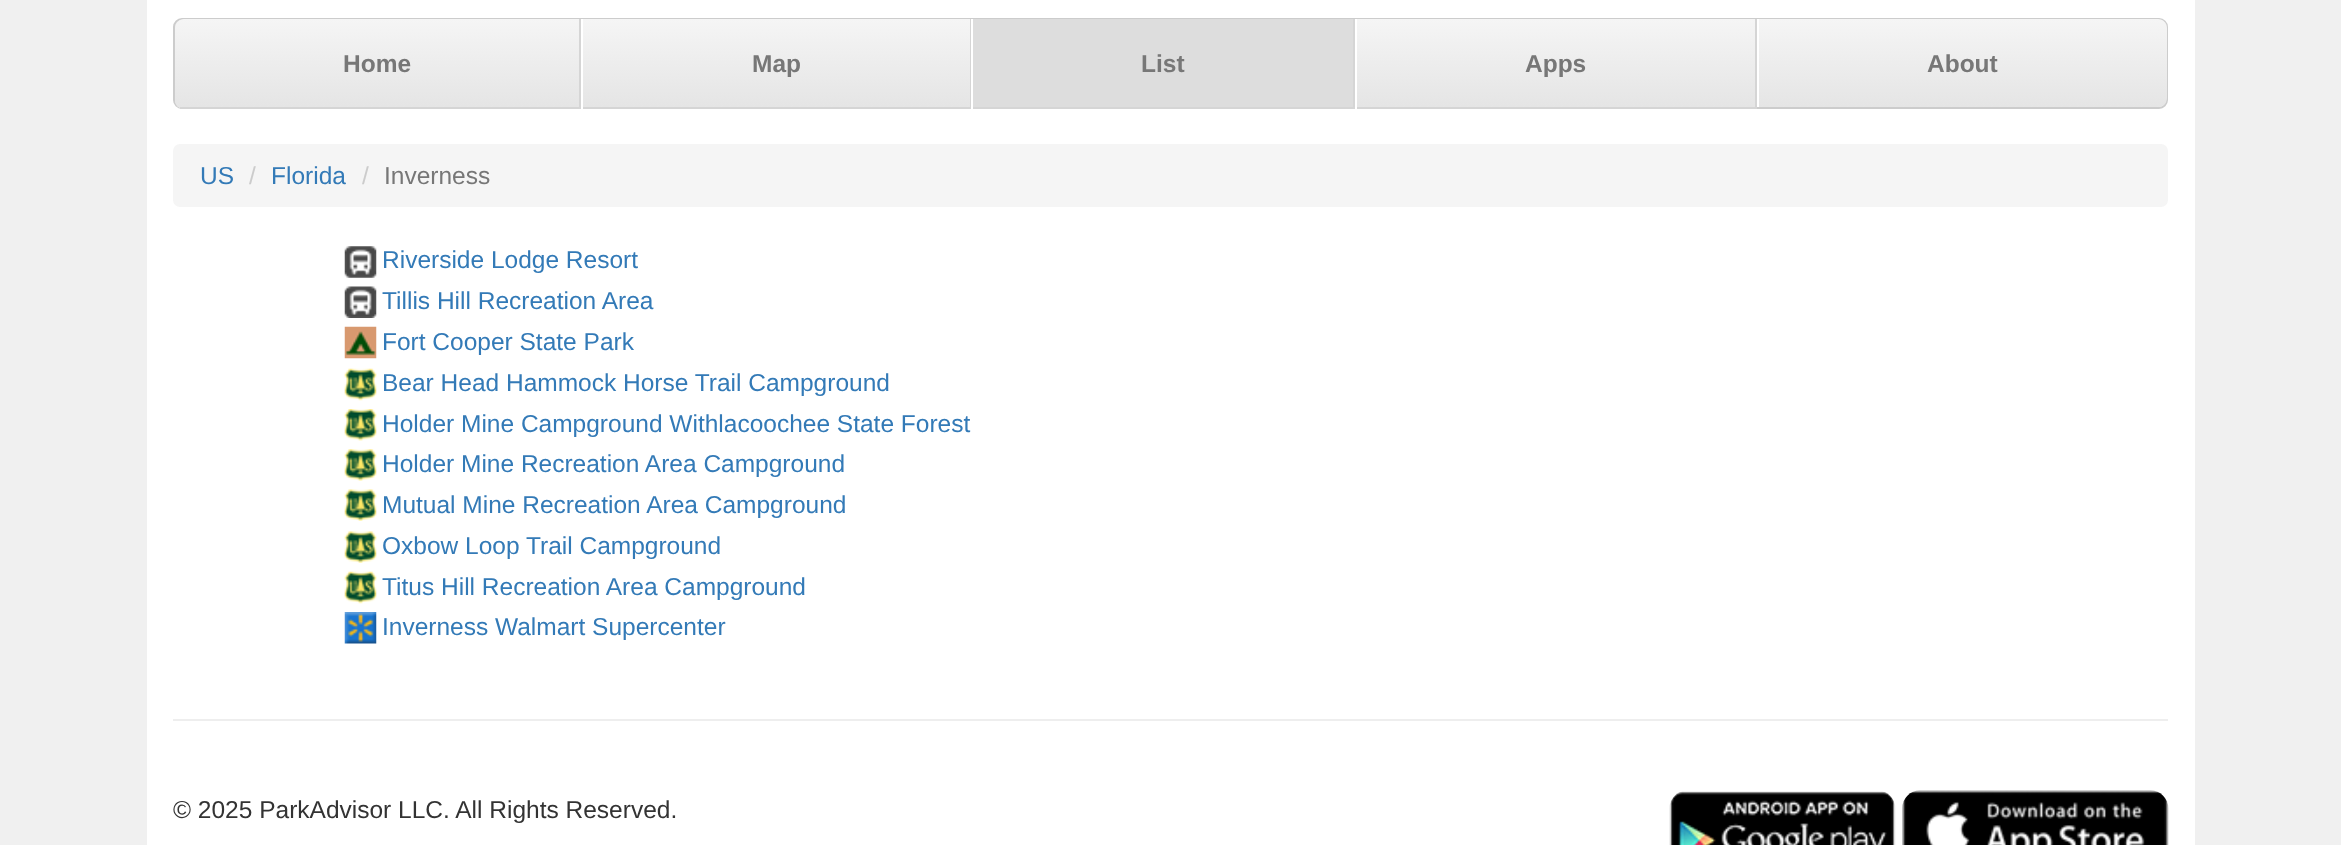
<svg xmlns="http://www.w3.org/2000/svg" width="2341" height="845">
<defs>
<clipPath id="clip1"><path d="M184 19h397v90h-397c-5 0-9-4-9-9v-72c0-5 4-9 9-9z"/></clipPath>
<linearGradient id="g1" gradientUnits="userSpaceOnUse" x1="377" y1="19" x2="377" y2="107"><stop offset="0" stop-color="#f5f5f5"/><stop offset="1" stop-color="#e5e5e5"/></linearGradient>
<linearGradient id="g2" gradientUnits="userSpaceOnUse" x1="776" y1="19" x2="776" y2="107"><stop offset="0" stop-color="#f5f5f5"/><stop offset="1" stop-color="#e5e5e5"/></linearGradient>
<linearGradient id="g3" gradientUnits="userSpaceOnUse" x1="1556" y1="19" x2="1556" y2="107"><stop offset="0" stop-color="#f5f5f5"/><stop offset="1" stop-color="#e5e5e5"/></linearGradient>
<linearGradient id="g4" gradientUnits="userSpaceOnUse" x1="1963" y1="19" x2="1963" y2="107"><stop offset="0" stop-color="#f5f5f5"/><stop offset="1" stop-color="#e5e5e5"/></linearGradient>
</defs>
<rect width="100%" height="100%" fill="#f0f0f0"/>
<rect x="147" width="2048" height="845" fill="#fff"/>
<rect x="174" y="19" width="1993" height="89" rx="8" fill="#eee" stroke="#ccc" stroke-width="2"/>
<path d="M184 19h397v90h-397c-5 0-9-4-9-9v-72c0-5 4-9 9-9z" fill="#e5e5e5"/>
<g clip-path="url(#clip1)">
<path d="M184 19h397v88h-406v-79c0-5 4-9 9-9z" fill="url(#g1)"/>
</g>
<rect x="579" y="19" width="2" height="90" fill="#d5d5d5"/>
<rect x="180" y="107" width="401" height="2" fill="#d5d5d5"/>
<text x="343" y="72" style="font-family:Liberation Sans;font-size:24.5px;font-weight:bold;fill:#777">Home</text>
<rect x="583" y="19" width="387" height="88" fill="url(#g2)"/>
<rect x="970" y="19" width="1" height="90" fill="#d5d5d5"/>
<rect x="581" y="107" width="390" height="2" fill="#d5d5d5"/>
<rect x="581" y="19" width="2" height="90" fill="#fff"/>
<text x="752" y="72" style="font-family:Liberation Sans;font-size:24.5px;font-weight:bold;fill:#777">Map</text>
<rect x="973" y="19" width="380" height="88" fill="#ddd"/>
<rect x="1353" y="19" width="2" height="90" fill="#d5d5d5"/>
<rect x="971" y="107" width="384" height="2" fill="#d5d5d5"/>
<rect x="971" y="19" width="2" height="90" fill="#fff"/>
<text x="1141" y="72" style="font-family:Liberation Sans;font-size:24.5px;font-weight:bold;fill:#777">List</text>
<rect x="1357" y="19" width="398" height="88" fill="url(#g3)"/>
<rect x="1755" y="19" width="2" height="90" fill="#d5d5d5"/>
<rect x="1355" y="107" width="402" height="2" fill="#d5d5d5"/>
<rect x="1355" y="19" width="2" height="90" fill="#fff"/>
<text x="1525" y="72" style="font-family:Liberation Sans;font-size:24.5px;font-weight:bold;fill:#777">Apps</text>
<path d="M1757 19h401c5 0 9 4 9 9v70c0 5-4 9-9 9h-401z" fill="url(#g4)"/>
<rect x="1757" y="19" width="2" height="88" fill="#fff"/>
<text x="1927" y="72" style="font-family:Liberation Sans;font-size:24.5px;font-weight:bold;fill:#777">About</text>
<rect x="173" y="144" width="1995" height="63" rx="7" fill="#f5f5f5"/>
<text x="200" y="184" style="font-family:Liberation Sans;font-size:24.5px;fill:#337ab7">US</text>
<text x="249" y="184" style="font-family:Liberation Sans;font-size:24.5px;fill:#ccc">/</text>
<text x="271" y="184" style="font-family:Liberation Sans;font-size:24.5px;fill:#337ab7">Florida</text>
<text x="362" y="184" style="font-family:Liberation Sans;font-size:24.5px;fill:#ccc">/</text>
<text x="384" y="184" style="font-family:Liberation Sans;font-size:24.5px;fill:#777">Inverness</text>
<image x="344" y="246" width="33" height="32" href="media/1.png"/>
<text x="382" y="268" style="font-family:Liberation Sans;font-size:24.5px;fill:#337ab7">Riverside Lodge Resort</text>
<image x="344" y="286" width="33" height="32" href="media/2.png"/>
<text x="382" y="309" style="font-family:Liberation Sans;font-size:24.5px;fill:#337ab7">Tillis Hill Recreation Area</text>
<image x="344" y="326" width="33" height="33" href="media/3.png"/>
<text x="382" y="350" style="font-family:Liberation Sans;font-size:24.5px;fill:#337ab7">Fort Cooper State Park</text>
<image x="344" y="368" width="33" height="33" href="media/4.png"/>
<text x="382" y="391" style="font-family:Liberation Sans;font-size:24.5px;fill:#337ab7">Bear Head Hammock Horse Trail Campground</text>
<image x="344" y="409" width="33" height="32" href="media/5.png"/>
<text x="382" y="432" style="font-family:Liberation Sans;font-size:24.5px;fill:#337ab7">Holder Mine Campground Withlacoochee State Forest</text>
<image x="344" y="449" width="33" height="32" href="media/6.png"/>
<text x="382" y="472" style="font-family:Liberation Sans;font-size:24.5px;fill:#337ab7">Holder Mine Recreation Area Campground</text>
<image x="344" y="489" width="33" height="32" href="media/7.png"/>
<text x="382" y="513" style="font-family:Liberation Sans;font-size:24.5px;fill:#337ab7">Mutual Mine Recreation Area Campground</text>
<image x="344" y="531" width="33" height="32" href="media/7.png"/>
<text x="382" y="554" style="font-family:Liberation Sans;font-size:24.5px;fill:#337ab7">Oxbow Loop Trail Campground</text>
<image x="344" y="571" width="33" height="33" href="media/4.png"/>
<text x="382" y="595" style="font-family:Liberation Sans;font-size:24.5px;fill:#337ab7">Titus Hill Recreation Area Campground</text>
<image x="344" y="612" width="33" height="32" href="media/8.png"/>
<text x="382" y="635" style="font-family:Liberation Sans;font-size:24.5px;fill:#337ab7">Inverness Walmart Supercenter</text>
<rect x="173" y="719" width="1995" height="2" fill="#eee"/>
<text x="173" y="818" style="font-family:Liberation Sans;font-size:24.5px;fill:#333">© 2025 ParkAdvisor LLC. All Rights Reserved.</text>
<image x="1669" y="791" width="227" height="54" href="media/9.png"/>
<image x="1902" y="790" width="267" height="55" href="media/10.png"/>
</svg>
